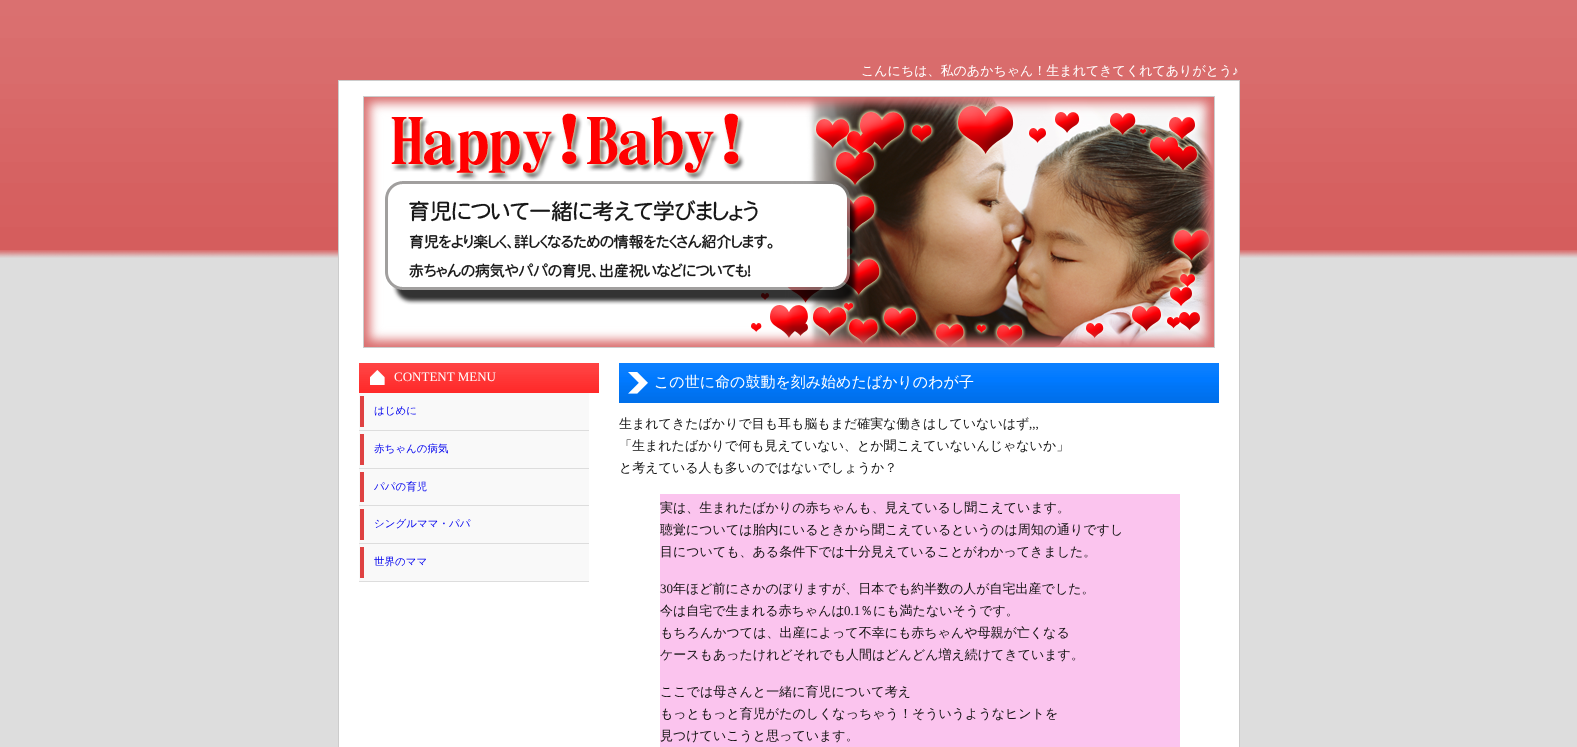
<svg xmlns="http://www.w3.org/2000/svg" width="1577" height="747">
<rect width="100%" height="100%" fill="#ddd"/>
<image x="0" y="0" width="1577" height="258" href="media/1.png"/>
<text x="861" y="75" style="font-family:WenQuanYi Zen Hei;font-size:13px;font-weight:500;fill:#fff">こんにちは、私のあかちゃん！生まれてきてくれてありがとう</text>
<text x="1232" y="75" style="font-family:Liberation Serif;font-size:13px;fill:#fff">♪</text>
<rect x="338.5" y="80.5" width="901" height="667" fill="#fff" stroke="#ccc"/>
<rect x="363.5" y="96.5" width="851" height="251" fill="none" stroke="#ccc"/>
<image x="364" y="97" width="850" height="250" href="media/2.png"/>
<image x="359" y="363" width="240" height="30" href="media/3.png"/>
<text x="394" y="381" style="font-family:Liberation Serif;font-size:13px;fill:#fff">CONTENT MENU</text>
<rect x="359" y="393" width="230" height="37" fill="#f9f9f9"/>
<rect x="359" y="430" width="230" height="1" fill="#ddd"/>
<rect x="360" y="396" width="4" height="31" fill="#df4242"/>
<text x="374" y="414" style="font-family:WenQuanYi Zen Hei;font-size:10.5px;font-weight:500;fill:#00e">はじめに</text>
<rect x="359" y="431" width="230" height="37" fill="#f9f9f9"/>
<rect x="359" y="468" width="230" height="1" fill="#ddd"/>
<rect x="360" y="434" width="4" height="31" fill="#df4242"/>
<text x="374" y="452" style="font-family:WenQuanYi Zen Hei;font-size:10.5px;font-weight:500;fill:#00e">赤ちゃんの病気</text>
<rect x="359" y="469" width="230" height="36" fill="#f9f9f9"/>
<rect x="359" y="505" width="230" height="1" fill="#ddd"/>
<rect x="360" y="472" width="4" height="30" fill="#df4242"/>
<text x="374" y="490" style="font-family:WenQuanYi Zen Hei;font-size:10.5px;font-weight:500;fill:#00e">パパの育児</text>
<rect x="359" y="506" width="230" height="37" fill="#f9f9f9"/>
<rect x="359" y="543" width="230" height="1" fill="#ddd"/>
<rect x="360" y="509" width="4" height="31" fill="#df4242"/>
<text x="374" y="527" style="font-family:WenQuanYi Zen Hei;font-size:10.5px;font-weight:500;fill:#00e">シングルママ・パパ</text>
<rect x="359" y="544" width="230" height="37" fill="#f9f9f9"/>
<rect x="359" y="581" width="230" height="1" fill="#ddd"/>
<rect x="360" y="547" width="4" height="31" fill="#df4242"/>
<text x="374" y="565" style="font-family:WenQuanYi Zen Hei;font-size:10.5px;font-weight:500;fill:#00e">世界のママ</text>
<image x="619" y="363" width="600" height="40" href="media/4.png"/>
<text x="654" y="387" style="font-family:WenQuanYi Zen Hei;font-size:15px;font-weight:500;fill:#fff">この世に命の鼓動を刻み始めたばかりのわが子</text>
<text x="619" y="428" style="font-family:WenQuanYi Zen Hei;font-size:13px;font-weight:500;fill:#111">生まれてきたばかりで目も耳も脳もまだ確実な働きはしていないはず</text>
<text x="1029" y="428" style="font-family:Liberation Serif;font-size:13px;fill:#111">,,,</text>
<text x="619" y="450" style="font-family:WenQuanYi Zen Hei;font-size:13px;font-weight:500;fill:#111">「生まれたばかりで何も見えていない、とか聞こえていないんじゃないか」</text>
<text x="619" y="472" style="font-family:WenQuanYi Zen Hei;font-size:13px;font-weight:500;fill:#111">と考えている人も多いのではないでしょうか？</text>
<rect x="660" y="494" width="520" height="253" fill="#fbc4ee"/>
<text x="660" y="512" style="font-family:WenQuanYi Zen Hei;font-size:13px;font-weight:500;fill:#111">実は、生まれたばかりの赤ちゃんも、見えているし聞こえています。</text>
<text x="660" y="534" style="font-family:WenQuanYi Zen Hei;font-size:13px;font-weight:500;fill:#111">聴覚については胎内にいるときから聞こえているというのは周知の通りですし</text>
<text x="660" y="556" style="font-family:WenQuanYi Zen Hei;font-size:13px;font-weight:500;fill:#111">目についても、ある条件下では十分見えていることがわかってきました。</text>
<text x="660" y="593" style="font-family:Liberation Serif;font-size:13px;fill:#111">30</text>
<text x="673" y="593" style="font-family:WenQuanYi Zen Hei;font-size:13px;font-weight:500;fill:#111">年ほど前にさかのぼりますが、日本でも約半数の人が自宅出産でした。</text>
<text x="660" y="615" style="font-family:WenQuanYi Zen Hei;font-size:13px;font-weight:500;fill:#111">今は自宅で生まれる赤ちゃんは</text>
<text x="844" y="615" style="font-family:Liberation Serif;font-size:13px;fill:#111">0.1</text>
<text x="860" y="615" style="font-family:WenQuanYi Zen Hei;font-size:13px;font-weight:500;fill:#111">％にも満たないそうです。</text>
<text x="660" y="637" style="font-family:WenQuanYi Zen Hei;font-size:13px;font-weight:500;fill:#111">もちろんかつては、出産によって不幸にも赤ちゃんや母親が亡くなる</text>
<text x="660" y="659" style="font-family:WenQuanYi Zen Hei;font-size:13px;font-weight:500;fill:#111">ケースもあったけれどそれでも人間はどんどん増え続けてきています。</text>
<text x="660" y="696" style="font-family:WenQuanYi Zen Hei;font-size:13px;font-weight:500;fill:#111">ここでは母さんと一緒に育児について考え</text>
<text x="660" y="718" style="font-family:WenQuanYi Zen Hei;font-size:13px;font-weight:500;fill:#111">もっともっと育児がたのしくなっちゃう！そういうようなヒントを</text>
<text x="660" y="740" style="font-family:WenQuanYi Zen Hei;font-size:13px;font-weight:500;fill:#111">見つけていこうと思っています。</text>
</svg>
